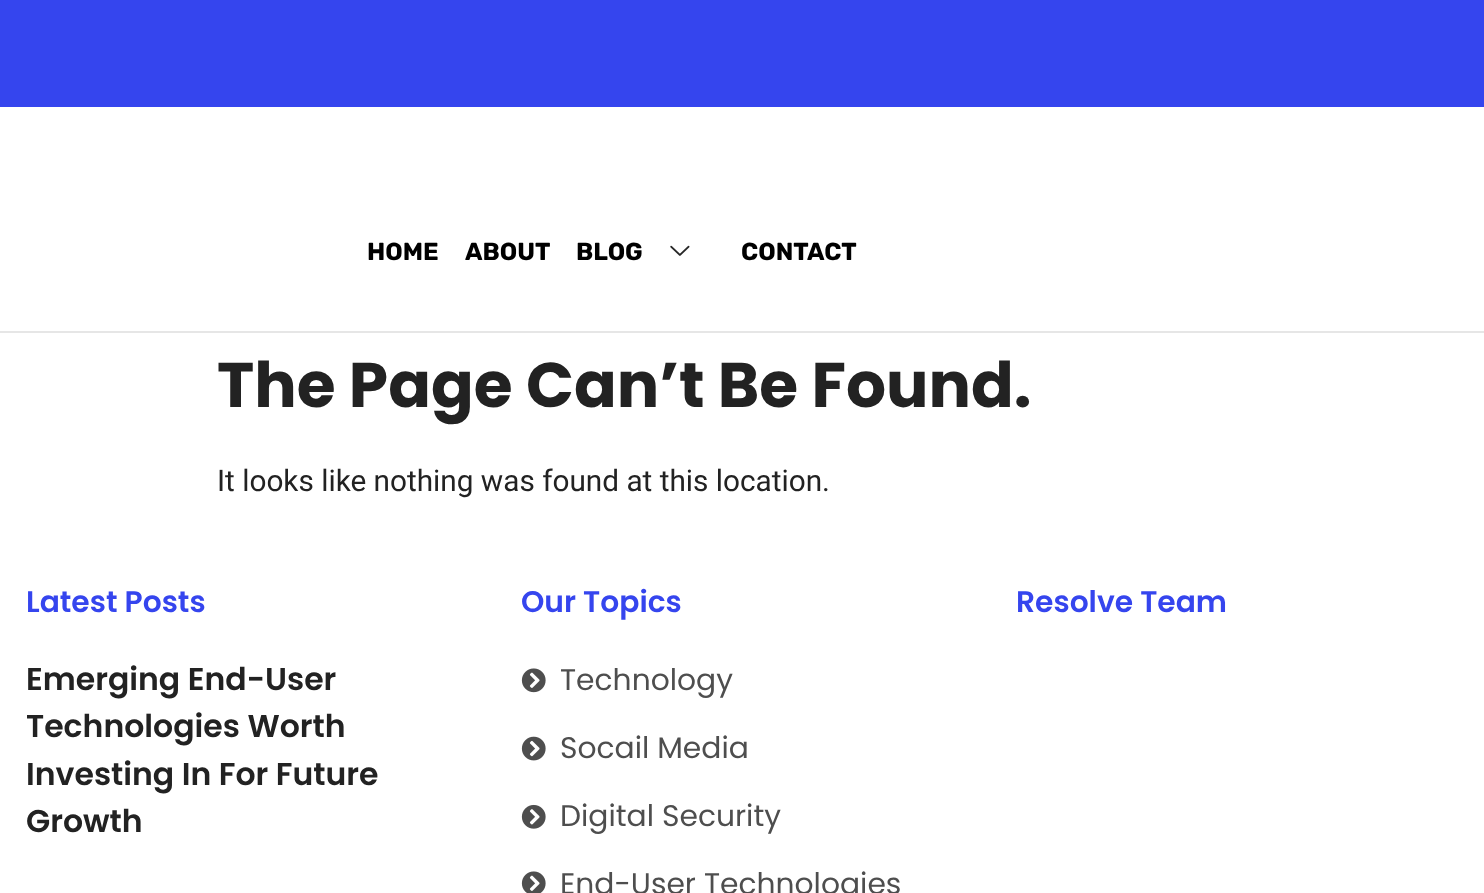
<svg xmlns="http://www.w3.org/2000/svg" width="1484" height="893">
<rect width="100%" height="100%" fill="#fff"/>
<rect y="331" width="1484" height="2" fill="#e6e6e6"/>
<rect width="1484" height="107" fill="#3545ee"/>
<text x="367" y="260" style="font-family:Rubik;font-size:24.5px;font-weight:bold;fill:#000">HOME</text>
<text x="465" y="260" style="font-family:Rubik;font-size:24.5px;font-weight:bold;fill:#000">ABOUT</text>
<text x="576" y="260" style="font-family:Rubik;font-size:24.5px;font-weight:bold;fill:#000">BLOG</text>
<image x="670" y="245" width="20" height="11" href="media/1.png"/>
<text x="741" y="260" style="font-family:Rubik;font-size:24.5px;font-weight:bold;fill:#000">CONTACT</text>
<text x="217" y="407" style="font-family:Poppins;font-size:63px;font-weight:bold;fill:#222">The Page Can’t Be Found.</text>
<text x="217" y="491" style="font-family:Roboto;font-size:29.75px;fill:#222">It looks like nothing was found at this location.</text>
<text x="26" y="612" style="font-family:Poppins;font-size:29.75px;font-weight:600;fill:#3545ee">Latest Posts</text>
<text x="26" y="690" style="font-family:Poppins;font-size:31.5px;font-weight:600;fill:#222">Emerging End-User</text>
<text x="26" y="737" style="font-family:Poppins;font-size:31.5px;font-weight:600;fill:#222">Technologies Worth</text>
<text x="26" y="785" style="font-family:Poppins;font-size:31.5px;font-weight:600;fill:#222">Investing In For Future</text>
<text x="26" y="832" style="font-family:Poppins;font-size:31.5px;font-weight:600;fill:#222">Growth</text>
<text x="521" y="612" style="font-family:Poppins;font-size:29.75px;font-weight:600;fill:#3545ee">Our Topics</text>
<image x="521" y="668" width="25" height="25" href="media/2.png"/>
<text x="560" y="690" style="font-family:Poppins;font-size:29.75px;fill:#4e4e4e">Technology</text>
<image x="521" y="736" width="25" height="25" href="media/3.png"/>
<text x="560" y="758" style="font-family:Poppins;font-size:29.75px;fill:#4e4e4e">Socail Media</text>
<image x="521" y="804" width="25" height="25" href="media/4.png"/>
<text x="560" y="826" style="font-family:Poppins;font-size:29.75px;fill:#4e4e4e">Digital Security</text>
<image x="521" y="871" width="25" height="22" href="media/5.png"/>
<text x="560" y="894" style="font-family:Poppins;font-size:29.75px;fill:#4e4e4e">End-User Technologies</text>
<text x="1016" y="612" style="font-family:Poppins;font-size:29.75px;font-weight:600;fill:#3545ee">Resolve Team</text>
</svg>
